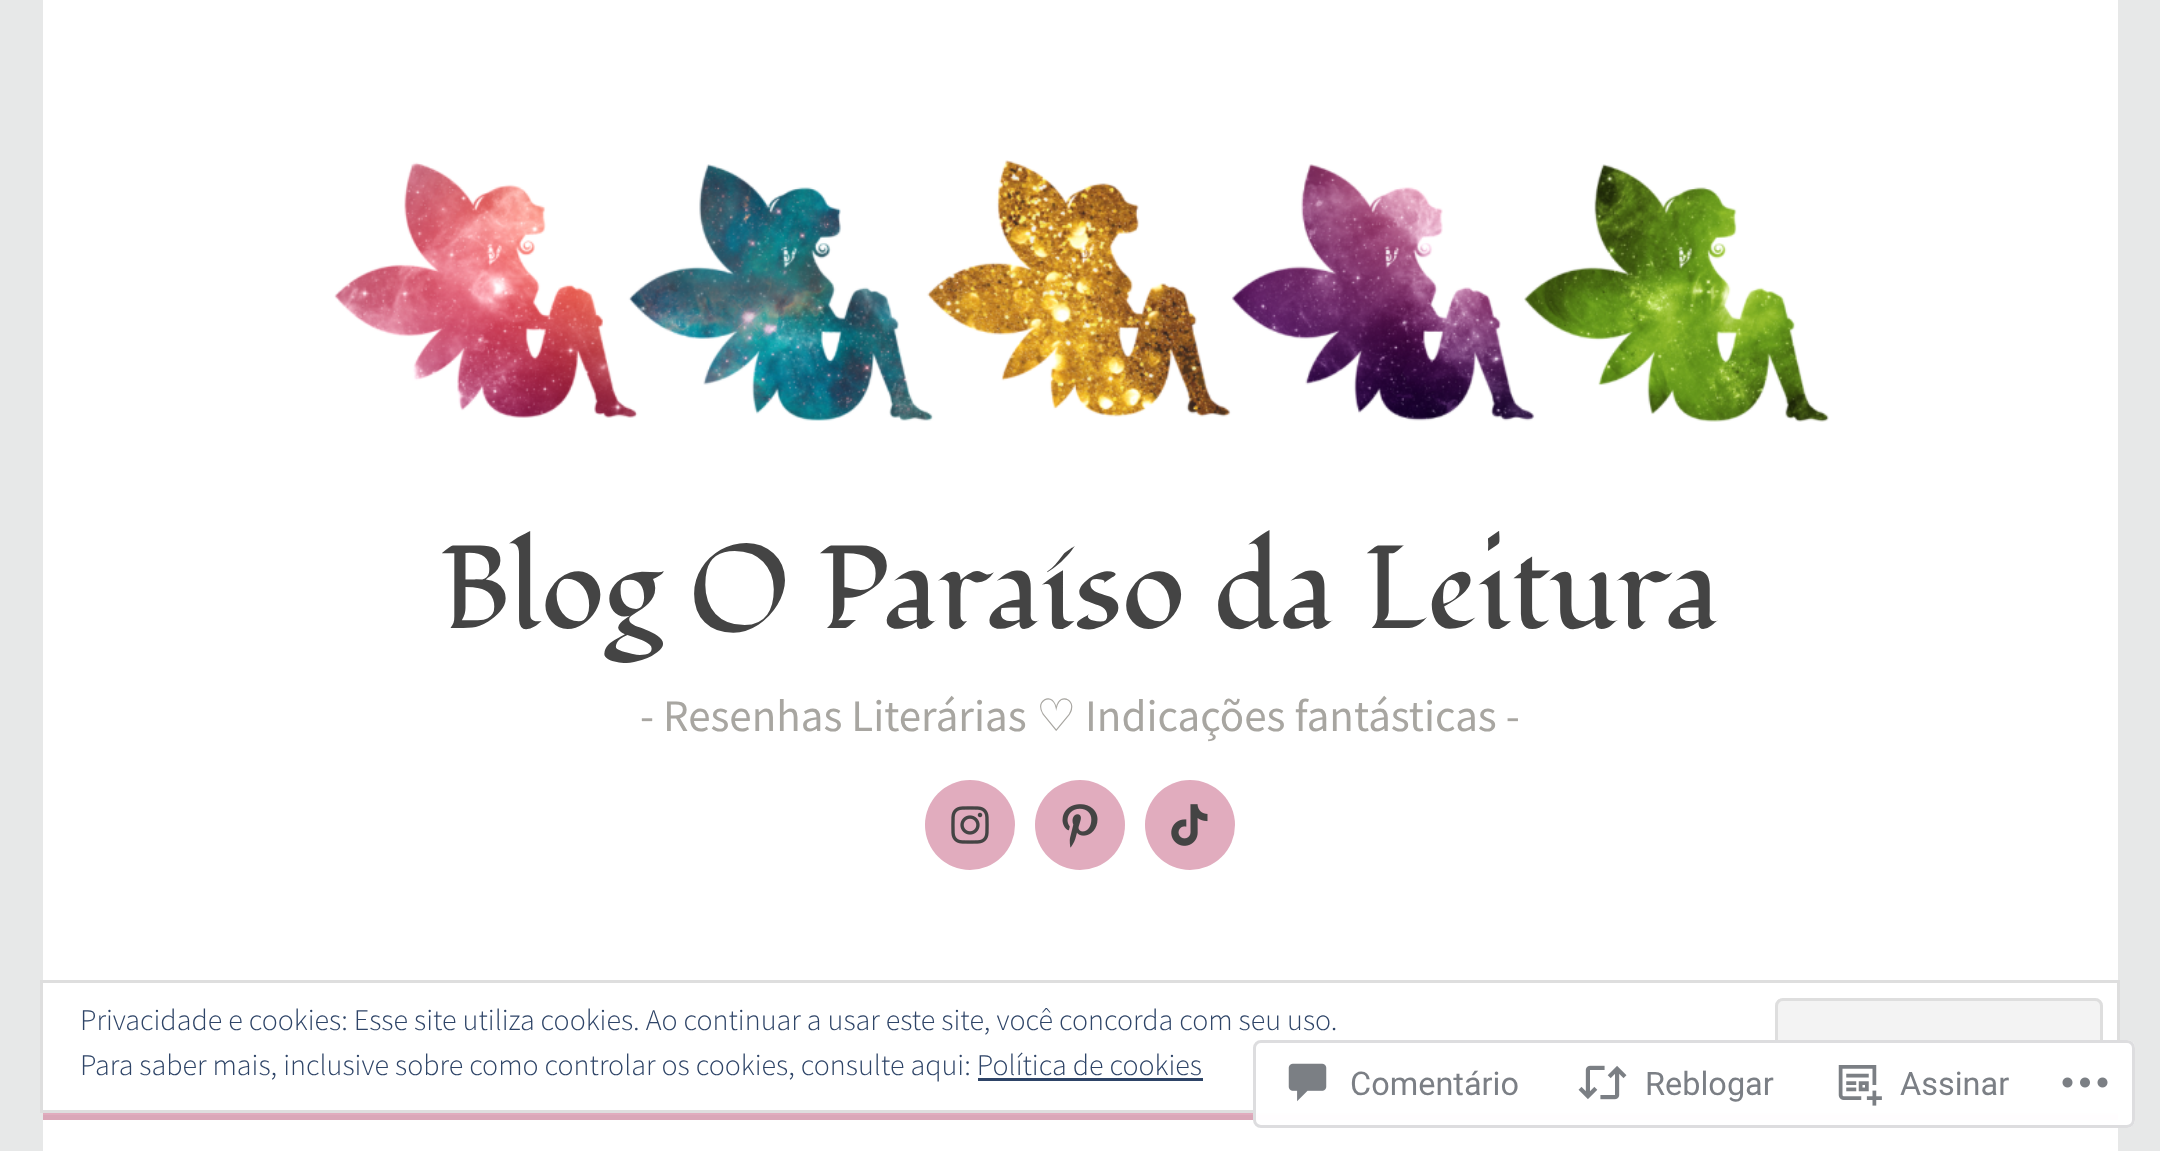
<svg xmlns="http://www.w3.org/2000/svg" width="2160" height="1151">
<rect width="100%" height="100%" fill="#e7e8e8"/>
<rect x="43" width="2075" height="980" fill="#fff"/>
<image x="334" y="160" width="1495" height="262" href="media/1.png"/>
<text x="440" y="628" style="font-family:Fondamento;font-size:117.5px;fill:#444">Blog O Paraíso da Leitura</text>
<text x="640" y="731" style="font-family:Source Sans Pro;font-size:45px;fill:#a8a6a1">- Resenhas Literárias</text>
<text x="1036" y="731" style="font-family:DejaVu Sans;font-size:45px;fill:#a8a6a1">♡</text>
<text x="1085" y="731" style="font-family:Source Sans Pro;font-size:45px;fill:#a8a6a1">Indicações fantásticas -</text>
<circle cx="970" cy="825" r="45" fill="#e1acbe"/>
<image x="951" y="806" width="38" height="38" href="media/2.png"/>
<circle cx="1080" cy="825" r="45" fill="#e1acbe"/>
<image x="1062" y="804" width="36" height="44" href="media/3.png"/>
<circle cx="1190" cy="825" r="45" fill="#e1acbe"/>
<image x="1171" y="804" width="37" height="42" href="media/4.png"/>
<rect x="43" y="1113" width="2075" height="2" fill="#e1acbe"/>
<rect x="43" y="1115" width="2075" height="5" fill="#daa7b8"/>
<rect x="43" y="1120" width="2075" height="31" fill="#fff"/>
<rect x="41.5" y="981.5" width="2077" height="130" fill="#fff" stroke="#dedede" stroke-width="3"/>
<text x="80" y="1030" style="font-family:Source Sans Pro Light;font-size:30px;font-weight:300;fill:#2e4467">Privacidade e cookies: Esse site utiliza cookies. Ao continuar a usar este site, você concorda com seu uso.</text>
<rect x="1775" y="998" width="328" height="97" rx="8" fill="#f3f3f3"/>
<path d="M1778 1082v6c0 3 2 5 5 5h312c3 0 5-2 5-5v-6c0 3-2 6-5 6h-313c-2 0-4-3-4-6z" fill="#dbdbdb"/>
<rect x="1776.5" y="999.5" width="325" height="94" rx="6.5" fill="none" stroke="#dedede" stroke-width="3"/>
<text x="80" y="1075" style="font-family:Source Sans Pro Light;font-size:30px;font-weight:300;fill:#2e4467">Para saber mais, inclusive sobre como controlar os cookies, consulte aqui: Política de cookies</text>
<rect x="978" y="1078" width="225" height="3" fill="#2e4467"/>
<rect x="1253" y="1040" width="882" height="88" rx="8" fill="#fffffffa"/>
<rect x="1254.5" y="1041.5" width="879" height="85" rx="6.5" fill="none" stroke="#dcdcdefa" stroke-width="3"/>
<image x="1288" y="1063" width="39" height="39" href="media/5.png"/>
<text x="1350" y="1095" style="font-family:Roboto;font-size:32.5px;fill:#7b7f85">Comentário</text>
<image x="1578" y="1065" width="49" height="35" href="media/6.png"/>
<text x="1645" y="1095" style="font-family:Roboto;font-size:32.5px;fill:#7b7f85">Reblogar</text>
<image x="1838" y="1065" width="44" height="41" href="media/7.png"/>
<text x="1900" y="1095" style="font-family:Roboto;font-size:32.5px;fill:#7b7f85">Assinar</text>
<image x="2062" y="1077" width="46" height="11" href="media/8.png"/>
</svg>
